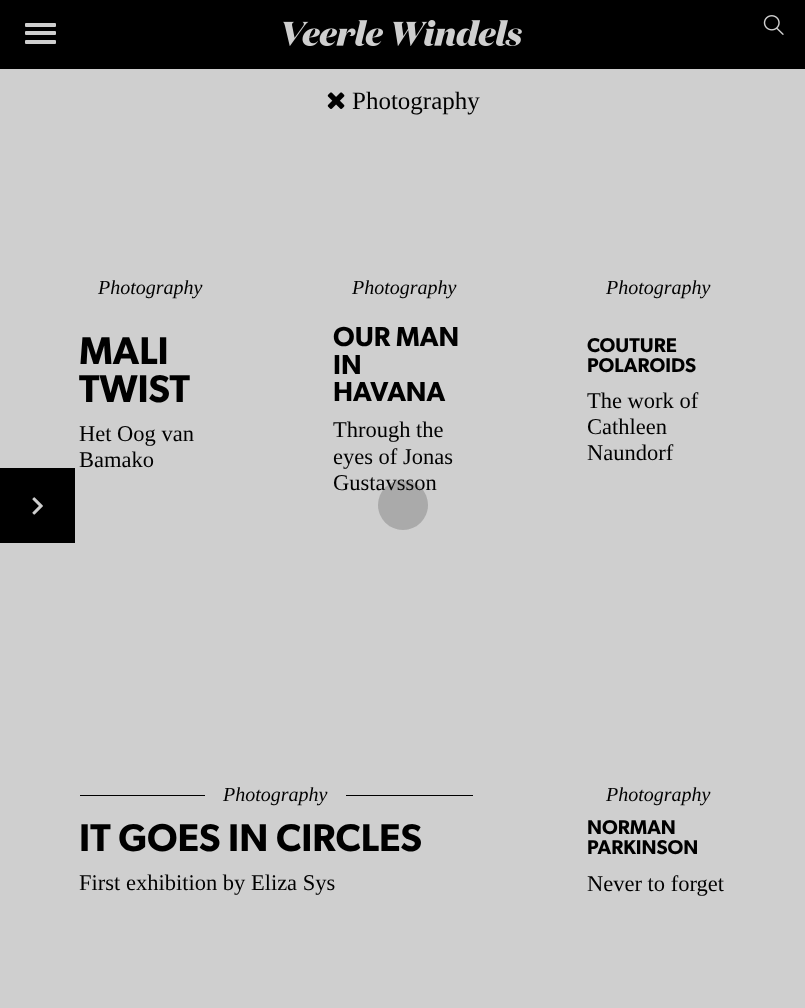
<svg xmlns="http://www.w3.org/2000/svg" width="805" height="1008">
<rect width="100%" height="100%" fill="#cfcfcf"/>
<rect width="805" height="69" fill="#000"/>
<rect x="25" y="23" width="31" height="4" rx="1" fill="#cfcfcf"/>
<rect x="25" y="31" width="31" height="4" rx="1" fill="#cfcfcf"/>
<rect x="25" y="40" width="31" height="4" rx="1" fill="#cfcfcf"/>
<image x="283" y="20" width="239" height="26" href="media/1.png"/>
<image x="763" y="15" width="21" height="20" href="media/2.png"/>
<image x="327" y="92" width="18" height="17" href="media/3.png"/>
<text x="352" y="109" style="font-family:Liberation Serif;font-size:25px;fill:#000">Photography</text>
<rect y="468" width="75" height="75" fill="#000"/>
<image x="32" y="497" width="11" height="18" href="media/4.png"/>
<text x="98" y="294" style="font-family:Liberation Serif;font-size:20px;font-style:italic;fill:#000">Photography</text>
<text x="79" y="364" style="font-family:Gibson;font-size:38.75px;font-weight:600;fill:#000">MALI</text>
<text x="79" y="402" style="font-family:Gibson;font-size:38.75px;font-weight:600;fill:#000">TWIST</text>
<text x="79" y="441" style="font-family:Liberation Serif;font-size:22.5px;fill:#000">Het Oog van</text>
<text x="79" y="467" style="font-family:Liberation Serif;font-size:22.5px;fill:#000">Bamako</text>
<text x="352" y="294" style="font-family:Liberation Serif;font-size:20px;font-style:italic;fill:#000">Photography</text>
<text x="333" y="346" style="font-family:Gibson;font-size:27.5px;font-weight:600;fill:#000">OUR MAN</text>
<text x="333" y="374" style="font-family:Gibson;font-size:27.5px;font-weight:600;fill:#000">IN</text>
<text x="333" y="401" style="font-family:Gibson;font-size:27.5px;font-weight:600;fill:#000">HAVANA</text>
<text x="333" y="437" style="font-family:Liberation Serif;font-size:22.5px;fill:#000">Through the</text>
<text x="333" y="464" style="font-family:Liberation Serif;font-size:22.5px;fill:#000">eyes of Jonas</text>
<text x="333" y="490" style="font-family:Liberation Serif;font-size:22.5px;fill:#000">Gustavsson</text>
<text x="606" y="294" style="font-family:Liberation Serif;font-size:20px;font-style:italic;fill:#000">Photography</text>
<text x="587" y="352" style="font-family:Gibson;font-size:20px;font-weight:600;fill:#000">COUTURE</text>
<text x="587" y="372" style="font-family:Gibson;font-size:20px;font-weight:600;fill:#000">POLAROIDS</text>
<text x="587" y="408" style="font-family:Liberation Serif;font-size:22.5px;fill:#000">The work of</text>
<text x="587" y="434" style="font-family:Liberation Serif;font-size:22.5px;fill:#000">Cathleen</text>
<text x="587" y="460" style="font-family:Liberation Serif;font-size:22.5px;fill:#000">Naundorf</text>
<rect x="80" y="795" width="393" height="1" fill="#000"/>
<rect x="205" y="795" width="141" height="1" fill="#cfcfcf"/>
<text x="223" y="801" style="font-family:Liberation Serif;font-size:20px;font-style:italic;fill:#000">Photography</text>
<text x="79" y="851" style="font-family:Gibson;font-size:38.75px;font-weight:600;fill:#000">IT GOES IN CIRCLES</text>
<text x="79" y="890" style="font-family:Liberation Serif;font-size:22.5px;fill:#000">First exhibition by Eliza Sys</text>
<text x="606" y="801" style="font-family:Liberation Serif;font-size:20px;font-style:italic;fill:#000">Photography</text>
<text x="587" y="834" style="font-family:Gibson;font-size:20px;font-weight:600;fill:#000">NORMAN</text>
<text x="587" y="854" style="font-family:Gibson;font-size:20px;font-weight:600;fill:#000">PARKINSON</text>
<text x="587" y="891" style="font-family:Liberation Serif;font-size:22.5px;fill:#000">Never to forget</text>
<circle cx="403" cy="505" r="25" fill="#3333331f"/>
<circle cx="403" cy="505" r="25" fill="#3333331f"/>
</svg>
